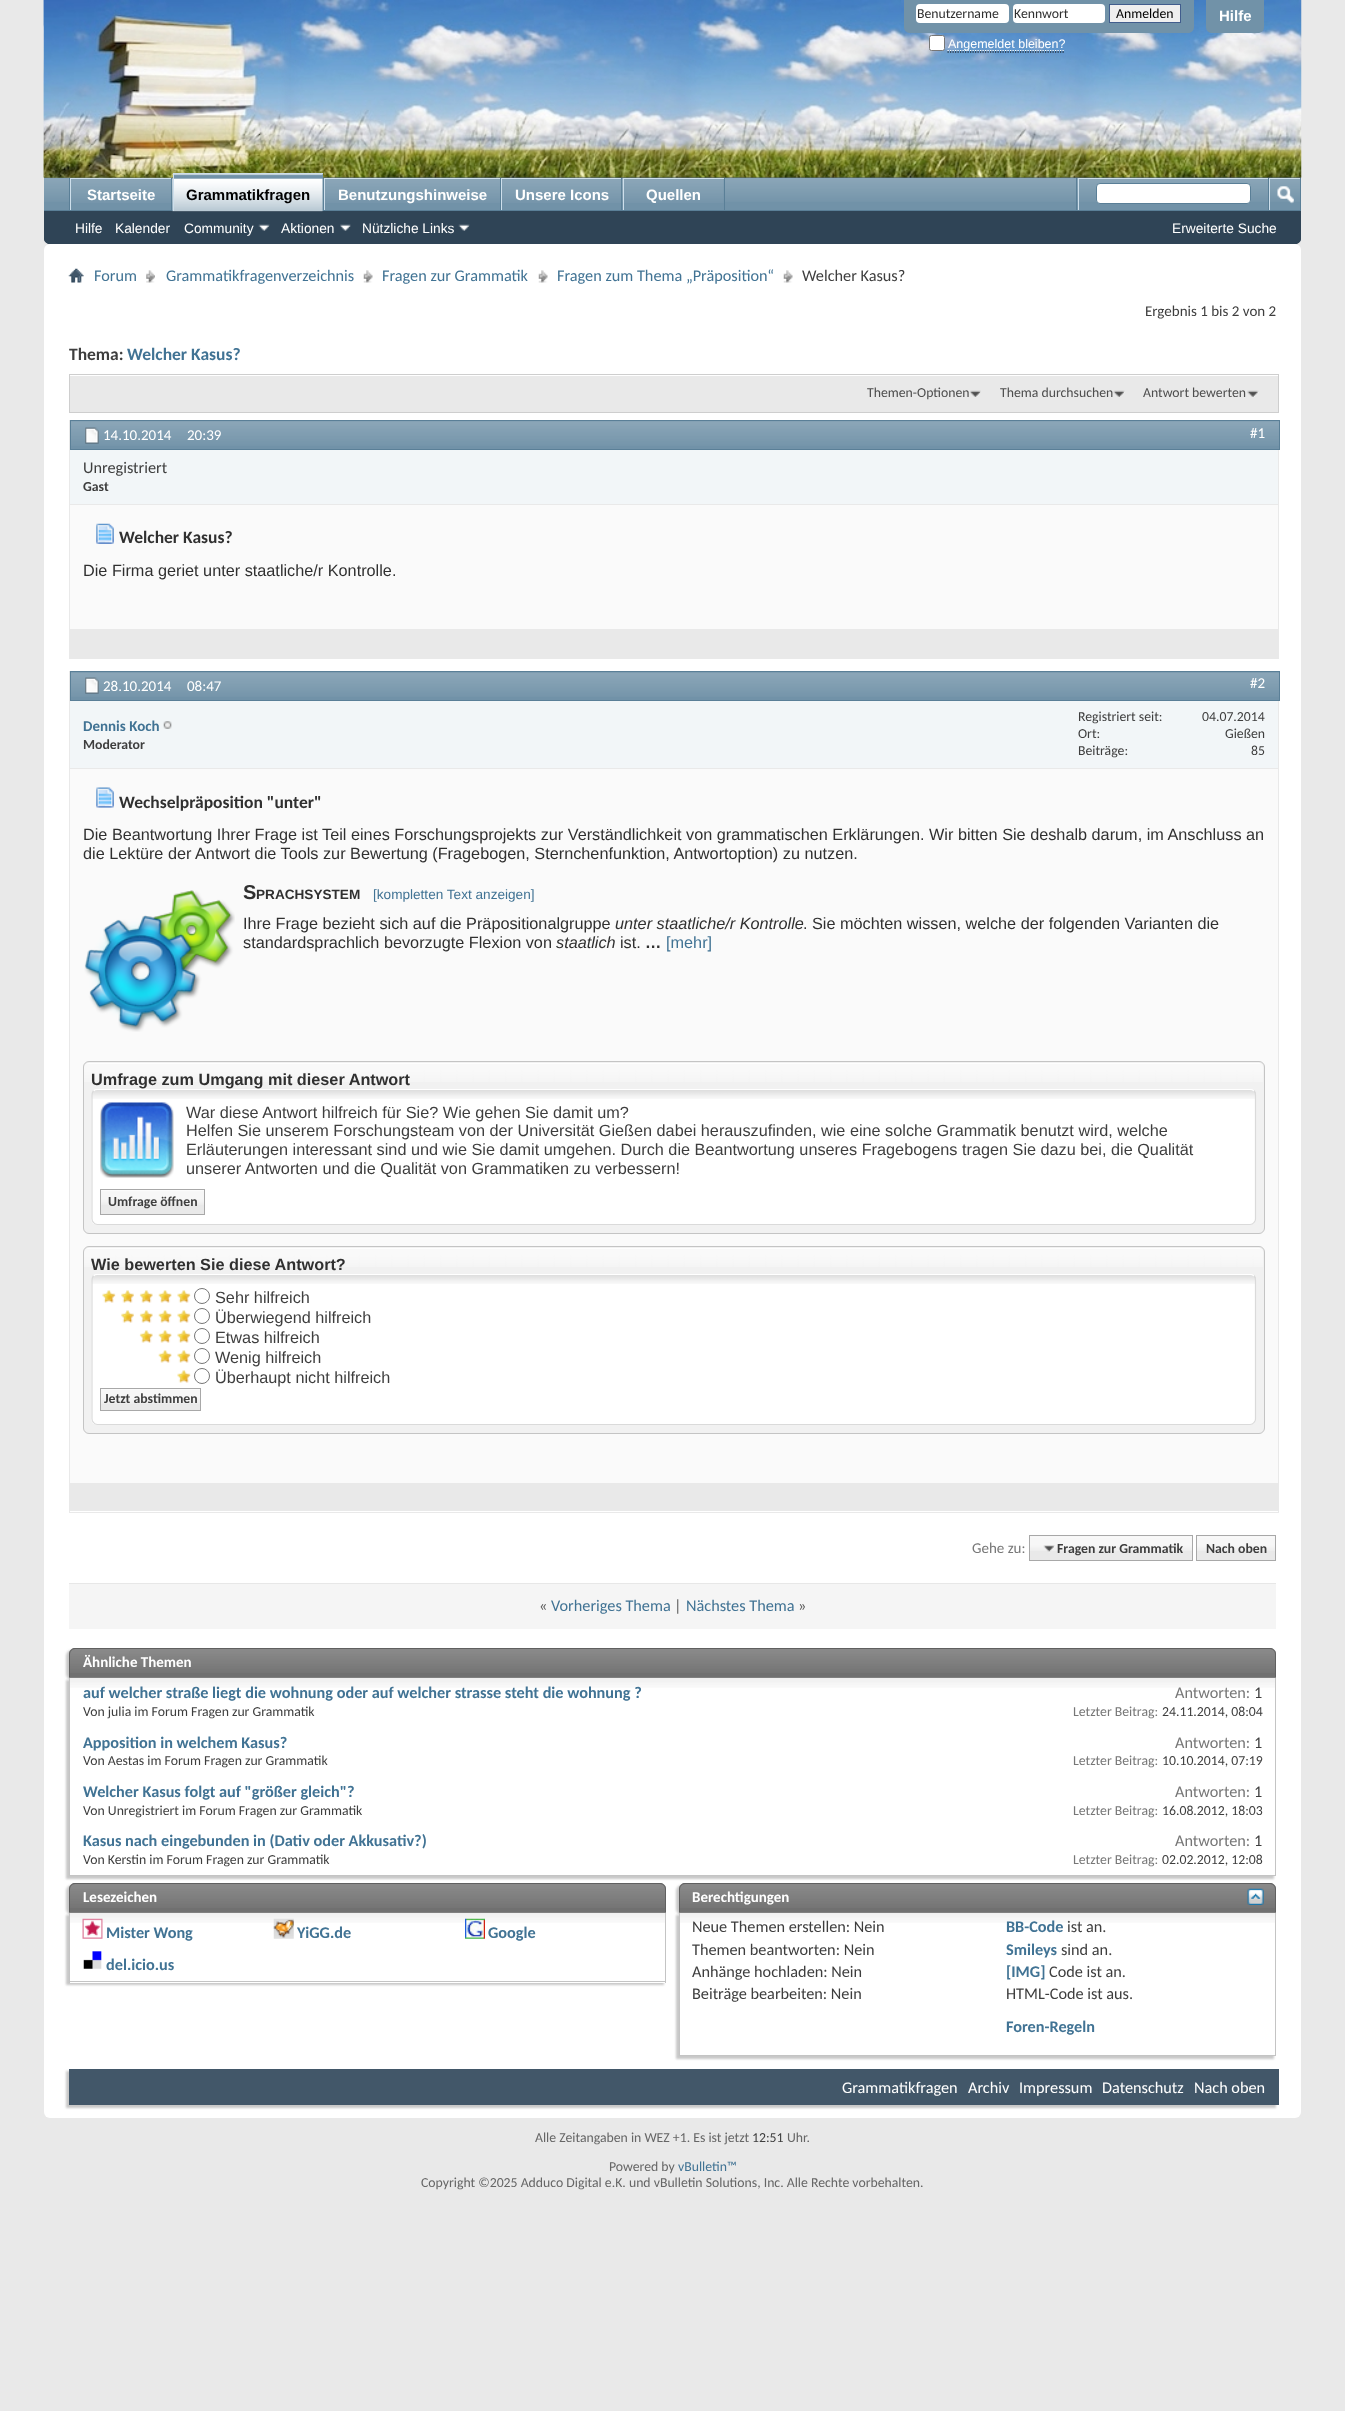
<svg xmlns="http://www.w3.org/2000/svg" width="1345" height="2411">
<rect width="100%" height="100%" fill="#e9e9e9"/>
<path d="M44 0h1257v238c0 3.5-2.5 6-6 6h-1245c-3.5 0-6-2.5-6-6z" fill="#2f4456"/>
<image x="43" y="0" width="1259" height="178" href="media/1.png"/>
<image x="43" y="0" width="248" height="178" href="media/2.png"/>
<path d="M904 0h290v27c0 3.5-2.5 6-6 6h-278c-3.5 0-6-2.5-6-6z" fill="#7192a8"/>
<rect x="916" y="4" width="93" height="19" rx="4" fill="#fff"/>
<text x="917" y="18" style="font-family:Carlito;font-size:13.75px;fill:#303030">Benutzername</text>
<rect x="1013" y="4" width="92" height="19" rx="4" fill="#fff"/>
<text x="1014" y="18" style="font-family:Carlito;font-size:13.75px;fill:#303030">Kennwort</text>
<rect x="1109.5" y="4.5" width="71" height="18" fill="#efefef" stroke="#415d8d"/>
<text x="1116" y="18" style="font-family:Carlito;font-size:13.75px;fill:#000">Anmelden</text>
<rect x="929.5" y="35.5" width="15" height="15" rx="2" fill="#fff" stroke="#767676"/>
<path d="M947.5 52h117.5" fill="none" stroke="#000" stroke-width="1.2" stroke-dasharray="1.25 1.25"/>
<path d="M947.5 50.5h117.5" fill="none" stroke="#fff" stroke-width="1.2" stroke-dasharray="1.25 1.25"/>
<text x="948" y="48" style="font-family:Liberation Sans;font-size:12.5px;fill:#fff">Angemeldet bleiben?</text>
<path d="M1206 0h58v27c0 3.5-2.5 6-6 6h-46c-3.5 0-6-2.5-6-6z" fill="#7192a8"/>
<text x="1219" y="21" style="font-family:Liberation Sans;font-size:15px;font-weight:bold;fill:#fff">Hilfe</text>
<path d="M44 178h1257v60c0 3.5-2.5 6-6 6h-1245c-3.5 0-6-2.5-6-6z" fill="#2f4456"/>
<rect x="44" y="178" width="1256" height="32" fill="#7192a8"/>
<image x="44" y="177" width="1257" height="25" href="media/3.png"/>
<rect x="323" y="178" width="1" height="32" fill="#5a7f97"/>
<rect x="171" y="178" width="1" height="33" fill="#5a7f97"/>
<rect x="69" y="178" width="1" height="33" fill="#5a7f97"/>
<rect x="70" y="178" width="101" height="1" fill="#cedfeb"/>
<rect x="70" y="178" width="1" height="33" fill="#cedfeb"/>
<rect x="500" y="178" width="1" height="33" fill="#5a7f97"/>
<rect x="325" y="179" width="175" height="23" fill="#7192a8"/>
<image x="323" y="179" width="177" height="24" href="media/8.png"/>
<rect x="324" y="178" width="176" height="1" fill="#cedfeb"/>
<rect x="324" y="178" width="1" height="33" fill="#cedfeb"/>
<rect x="621" y="178" width="1" height="33" fill="#5a7f97"/>
<rect x="501" y="178" width="120" height="1" fill="#cedfeb"/>
<rect x="501" y="178" width="1" height="33" fill="#cedfeb"/>
<rect x="724" y="178" width="1" height="33" fill="#5a7f97"/>
<rect x="624" y="179" width="100" height="23" fill="#7192a8"/>
<image x="622" y="178" width="102" height="25" href="media/10.png"/>
<rect x="623" y="178" width="101" height="1" fill="#cedfeb"/>
<rect x="623" y="178" width="1" height="33" fill="#cedfeb"/>
<rect x="44" y="210" width="1257" height="1" fill="#5a7f97"/>
<rect x="174" y="174" width="149" height="37" fill="#7192a8"/>
<image x="172" y="173" width="151" height="39" href="media/4.png"/>
<rect x="173" y="173" width="150" height="1" fill="#cedfeb"/>
<rect x="173" y="173" width="1" height="38" fill="#cedfeb"/>
<text x="186" y="200" style="font-family:Liberation Sans;font-size:15px;font-weight:bold;fill:#000">Grammatikfragen</text>
<text x="75" y="233" style="font-family:Liberation Sans;font-size:13.75px;fill:#fff">Hilfe</text>
<text x="115" y="233" style="font-family:Liberation Sans;font-size:13.75px;fill:#fff">Kalender</text>
<text x="184" y="233" style="font-family:Liberation Sans;font-size:13.75px;fill:#fff">Community</text>
<image x="258" y="224" width="12" height="7" href="media/5.png"/>
<text x="281" y="233" style="font-family:Liberation Sans;font-size:13.75px;fill:#fff">Aktionen</text>
<image x="340" y="224" width="11" height="7" href="media/6.png"/>
<text x="362" y="233" style="font-family:Liberation Sans;font-size:13.75px;fill:#fff">Nützliche Links</text>
<image x="458" y="224" width="12" height="7" href="media/5.png"/>
<rect x="71" y="179" width="100" height="23" fill="#7192a8"/>
<image x="71" y="179" width="101" height="24" href="media/7.png"/>
<text x="87" y="200" style="font-family:Liberation Sans;font-size:15px;font-weight:bold;fill:#fff">Startseite</text>
<text x="338" y="200" style="font-family:Liberation Sans;font-size:15px;font-weight:bold;fill:#fff">Benutzungshinweise</text>
<rect x="502" y="179" width="119" height="23" fill="#7192a8"/>
<image x="502" y="179" width="120" height="24" href="media/9.png"/>
<text x="515" y="200" style="font-family:Liberation Sans;font-size:15px;font-weight:bold;fill:#fff">Unsere Icons</text>
<text x="646" y="200" style="font-family:Liberation Sans;font-size:15px;font-weight:bold;fill:#fff">Quellen</text>
<rect x="1076" y="178" width="1" height="32" fill="#5a7f97"/>
<rect x="1078" y="178" width="190" height="1" fill="#cedfeb"/>
<rect x="1078" y="178" width="1" height="32" fill="#cedfeb"/>
<rect x="1096.5" y="183.5" width="154" height="20" rx="3.5" fill="#fff" stroke="#5a7f97"/>
<rect x="1300" y="178" width="1" height="32" fill="#5a7f97"/>
<rect x="1268" y="178" width="1" height="32" fill="#5a7f97"/>
<rect x="1269" y="178" width="31" height="1" fill="#cedfeb"/>
<rect x="1269" y="178" width="1" height="32" fill="#cedfeb"/>
<image x="1277" y="186" width="17" height="18" href="media/11.png"/>
<text x="1172" y="233" style="font-family:Liberation Sans;font-size:13.75px;fill:#fff">Erweiterte Suche</text>
<rect x="44" y="244" width="1257" height="1874" rx="6" fill="#fff"/>
<image x="68" y="268" width="16" height="15" href="media/12.png"/>
<image x="146" y="270" width="9" height="13" href="media/13.png"/>
<text x="94" y="281" style="font-family:Carlito;font-size:16.25px;fill:#417394">Forum</text>
<image x="363" y="270" width="10" height="13" href="media/14.png"/>
<text x="166" y="281" style="font-family:Carlito;font-size:16.25px;fill:#417394">Grammatikfragenverzeichnis</text>
<image x="538" y="270" width="10" height="13" href="media/15.png"/>
<text x="382" y="281" style="font-family:Carlito;font-size:16.25px;fill:#417394">Fragen zur Grammatik</text>
<image x="783" y="270" width="10" height="13" href="media/15.png"/>
<text x="557" y="281" style="font-family:Carlito;font-size:16.25px;fill:#417394">Fragen zum Thema „Präposition“</text>
<text x="802" y="281" style="font-family:Carlito;font-size:16.25px;fill:#3e3e3e">Welcher Kasus?</text>
<text x="1145" y="316" style="font-family:Carlito;font-size:15px;fill:#3e3e3e">Ergebnis 1 bis 2 von 2</text>
<text x="69" y="360" style="font-family:Carlito;font-size:17.5px;font-weight:bold;fill:#3e3e3e">Thema:</text>
<text x="127" y="360" style="font-family:Carlito;font-size:17.5px;font-weight:bold;fill:#417394">Welcher Kasus?</text>
<rect x="70" y="376" width="1208" height="36" fill="#e9e9e9"/>
<rect x="69.5" y="374.5" width="1209" height="38" fill="none" stroke="#cecece"/>
<image x="970" y="390" width="11" height="7" href="media/16.png"/>
<text x="867" y="397" style="font-family:Carlito;font-size:13.75px;fill:#4e4e4e">Themen-Optionen</text>
<image x="1113" y="390" width="12" height="7" href="media/17.png"/>
<text x="1000" y="397" style="font-family:Carlito;font-size:13.75px;fill:#4e4e4e">Thema durchsuchen</text>
<image x="1247" y="390" width="12" height="7" href="media/18.png"/>
<text x="1143" y="397" style="font-family:Carlito;font-size:13.75px;fill:#4e4e4e">Antwort bewerten</text>
<rect x="69.5" y="420.5" width="1209" height="238" fill="none" stroke="#e9e9e9"/>
<rect x="71" y="421" width="1208" height="28" fill="#7192a8"/>
<image x="71" y="421" width="1208" height="25" href="media/19.png"/>
<rect x="70.5" y="420.5" width="1209" height="29" fill="none" stroke="#5a7f97"/>
<image x="85" y="427" width="14" height="17" href="media/20.png"/>
<text x="103" y="440" style="font-family:Carlito;font-size:15px;fill:#fff">14.10.2014</text>
<text x="187" y="440" style="font-family:Carlito;font-size:15px;fill:#fff">20:39</text>
<text x="1250" y="438" style="font-family:Carlito;font-size:15px;fill:#fff">#1</text>
<rect x="70" y="450" width="1208" height="54" fill="#f2f6f8"/>
<rect x="70" y="504" width="1208" height="1" fill="#e9e9e9"/>
<text x="83" y="473" style="font-family:Carlito;font-size:16.25px;fill:#3e3e3e">Unregistriert</text>
<text x="83" y="491" style="font-family:Carlito;font-size:13.75px;font-weight:bold;fill:#3e3e3e">Gast</text>
<rect x="70" y="505" width="1208" height="124" fill="#fafafa"/>
<image x="96" y="523" width="18" height="21" href="media/21.png"/>
<text x="119" y="543" style="font-family:Carlito;font-size:17.5px;font-weight:bold;fill:#303030">Welcher Kasus?</text>
<text x="83" y="576" style="font-family:Liberation Sans;font-size:16.25px;fill:#303030">Die Firma geriet unter staatliche/r Kontrolle.</text>
<rect x="70" y="629" width="1208" height="29" fill="#e9e9e9"/>
<rect x="69.5" y="671.5" width="1209" height="841" fill="none" stroke="#e9e9e9"/>
<rect x="71" y="672" width="1208" height="28" fill="#7192a8"/>
<image x="71" y="672" width="1208" height="25" href="media/22.png"/>
<rect x="70.5" y="671.5" width="1209" height="29" fill="none" stroke="#5a7f97"/>
<image x="85" y="677" width="14" height="17" href="media/23.png"/>
<text x="103" y="691" style="font-family:Carlito;font-size:15px;fill:#fff">28.10.2014</text>
<text x="187" y="691" style="font-family:Carlito;font-size:15px;fill:#fff">08:47</text>
<text x="1250" y="688" style="font-family:Carlito;font-size:15px;fill:#fff">#2</text>
<rect x="70" y="701" width="1208" height="67" fill="#f2f6f8"/>
<rect x="70" y="768" width="1208" height="1" fill="#e9e9e9"/>
<text x="83" y="731" style="font-family:Carlito;font-size:15px;font-weight:bold;fill:#417394">Dennis Koch</text>
<image x="163" y="721" width="9" height="8" href="media/24.png"/>
<text x="83" y="749" style="font-family:Carlito;font-size:13.75px;font-weight:bold;fill:#3e3e3e">Moderator</text>
<text x="1078" y="721" style="font-family:Carlito;font-size:13.75px;fill:#3e3e3e">Registriert seit:</text>
<text x="1202" y="721" style="font-family:Carlito;font-size:13.75px;fill:#3e3e3e">04.07.2014</text>
<text x="1078" y="738" style="font-family:Carlito;font-size:13.75px;fill:#3e3e3e">Ort:</text>
<text x="1225" y="738" style="font-family:Carlito;font-size:13.75px;fill:#3e3e3e">Gießen</text>
<text x="1078" y="755" style="font-family:Carlito;font-size:13.75px;fill:#3e3e3e">Beiträge:</text>
<text x="1251" y="755" style="font-family:Carlito;font-size:13.75px;fill:#3e3e3e">85</text>
<rect x="70" y="769" width="1208" height="714" fill="#fafafa"/>
<image x="96" y="787" width="18" height="21" href="media/25.png"/>
<text x="119" y="808" style="font-family:Carlito;font-size:17.5px;font-weight:bold;fill:#303030">Wechselpräposition "unter"</text>
<text x="83" y="840" style="font-family:Liberation Sans;font-size:16.25px;fill:#303030">Die Beantwortung Ihrer Frage ist Teil eines Forschungsprojekts zur Verständlichkeit von grammatischen Erklärungen. Wir bitten Sie deshalb darum, im Anschluss an</text>
<text x="83" y="859" style="font-family:Liberation Sans;font-size:16.25px;fill:#303030">die Lektüre der Antwort die Tools zur Bewertung (Fragebogen, Sternchenfunktion, Antwortoption) zu nutzen.</text>
<image x="84" y="890" width="151" height="142" href="media/26.png"/>
<text x="243" y="899" style="font-family:Liberation Sans;font-size:20px;font-weight:bold;fill:#303030">S</text>
<text x="256" y="899" style="font-family:Liberation Sans;font-size:13.6px;font-weight:bold;fill:#303030">PRACHSYSTEM</text>
<text x="373" y="899" style="font-family:Liberation Sans;font-size:13.6px;fill:#417394">[kompletten Text anzeigen]</text>
<text x="243" y="929" style="font-family:Liberation Sans;font-size:16.25px;fill:#303030">Ihre Frage bezieht sich auf die Präpositionalgruppe</text>
<text x="615" y="929" style="font-family:Liberation Sans;font-size:16.25px;font-style:italic;fill:#303030">unter staatliche/r Kontrolle</text>
<text x="803" y="929" style="font-family:Liberation Sans;font-size:16.25px;fill:#303030">. Sie möchten wissen, welche der folgenden Varianten die</text>
<text x="243" y="948" style="font-family:Liberation Sans;font-size:16.25px;fill:#303030">standardsprachlich bevorzugte Flexion von</text>
<text x="556" y="948" style="font-family:Liberation Sans;font-size:16.25px;font-style:italic;fill:#303030">staatlich</text>
<text x="620" y="948" style="font-family:Liberation Sans;font-size:16.25px;fill:#303030">ist.</text>
<text x="645" y="948" style="font-family:Liberation Sans;font-size:16.25px;font-weight:bold;fill:#303030">…</text>
<text x="666" y="948" style="font-family:Liberation Sans;font-size:16.25px;fill:#417394">[mehr]</text>
<rect x="83.5" y="1061.5" width="1181" height="172" rx="5.5" fill="#f1f1f1" stroke="#c4c4c4"/>
<image x="84" y="1063" width="1179" height="19" href="media/27.png"/>
<rect x="91" y="1089" width="1165" height="136" rx="6" fill="#fff"/>
<image x="91" y="1090" width="1165" height="9" href="media/28.png"/>
<path d="M93.5 1091c1-1 2.5-1.5 4-1.5h1152.5c1.5 0 3 .5 4 1.5" fill="none" stroke="#fff" stroke-width="1.2"/>
<text x="91" y="1085" style="font-family:Liberation Sans;font-size:16.25px;font-weight:bold;fill:#303030">Umfrage zum Umgang mit dieser Antwort</text>
<path d="M1254 1091c1 1 1.5 2.5 1.5 4v124c0 1-.5 2.5-1.5 3.5c-1 1.5-2.5 2-4 2h-1152.5c-1.5 0-3-.5-4-2c-1-1-1.5-2.5-1.5-3.5v-124c0-1.5 .5-3 1.5-4" fill="none" stroke="#dadada" stroke-width="1.2"/>
<image x="100" y="1102" width="74" height="76" href="media/29.png"/>
<text x="186" y="1118" style="font-family:Liberation Sans;font-size:16.25px;fill:#3e3e3e">War diese Antwort hilfreich für Sie? Wie gehen Sie damit um?</text>
<text x="186" y="1136" style="font-family:Liberation Sans;font-size:16.25px;fill:#3e3e3e">Helfen Sie unserem Forschungsteam von der Universität Gießen dabei herauszufinden, wie eine solche Grammatik benutzt wird, welche</text>
<text x="186" y="1155" style="font-family:Liberation Sans;font-size:16.25px;fill:#3e3e3e">Erläuterungen interessant sind und wie Sie damit umgehen. Durch die Beantwortung unseres Fragebogens tragen Sie dazu bei, die Qualität</text>
<text x="186" y="1174" style="font-family:Liberation Sans;font-size:16.25px;fill:#3e3e3e">unserer Antworten und die Qualität von Grammatiken zu verbessern!</text>
<rect x="101" y="1190" width="103" height="24" fill="#e9e9e9"/>
<image x="101" y="1190" width="103" height="15" href="media/30.png"/>
<rect x="100.5" y="1189.5" width="104" height="25" fill="none" stroke="#a8a8a8"/>
<text x="108" y="1206" style="font-family:Carlito;font-size:13.75px;font-weight:bold;fill:#3e3e3e">Umfrage öffnen</text>
<rect x="83.5" y="1246.5" width="1181" height="187" rx="5.5" fill="#f1f1f1" stroke="#c4c4c4"/>
<image x="84" y="1248" width="1179" height="19" href="media/31.png"/>
<text x="91" y="1270" style="font-family:Liberation Sans;font-size:16.25px;font-weight:bold;fill:#303030">Wie bewerten Sie diese Antwort?</text>
<rect x="91" y="1274" width="1165" height="151" rx="6" fill="#fff"/>
<image x="91" y="1275" width="1165" height="9" href="media/28.png"/>
<path d="M93.5 1276c1-1 2.5-1.5 4-1.5h1152.5c1.5 0 3 .5 4 1.5" fill="none" stroke="#fff" stroke-width="1.2"/>
<path d="M1254 1276c1 1 1.5 2.5 1.5 4v139c0 1-.5 2.5-1.5 3.5c-1 1.5-2.5 2-4 2h-1152.5c-1.5 0-3-.5-4-2c-1-1-1.5-2.5-1.5-3.5v-139c0-1.5 .5-3 1.5-4" fill="none" stroke="#dadada" stroke-width="1.2"/>
<image x="102" y="1290" width="89" height="13" href="media/32.png"/>
<circle cx="202" cy="1296" r="7.5" fill="none" stroke="#767676"/>
<text x="215" y="1303" style="font-family:Liberation Sans;font-size:16.25px;fill:#3e3e3e">Sehr hilfreich</text>
<image x="121" y="1310" width="70" height="13" href="media/33.png"/>
<circle cx="202" cy="1316" r="7.5" fill="none" stroke="#767676"/>
<text x="215" y="1323" style="font-family:Liberation Sans;font-size:16.25px;fill:#3e3e3e">Überwiegend hilfreich</text>
<image x="139" y="1330" width="52" height="13" href="media/34.png"/>
<circle cx="202" cy="1336" r="7.5" fill="none" stroke="#767676"/>
<text x="215" y="1343" style="font-family:Liberation Sans;font-size:16.25px;fill:#3e3e3e">Etwas hilfreich</text>
<image x="158" y="1350" width="33" height="13" href="media/35.png"/>
<circle cx="202" cy="1356" r="7.5" fill="none" stroke="#767676"/>
<text x="215" y="1363" style="font-family:Liberation Sans;font-size:16.25px;fill:#3e3e3e">Wenig hilfreich</text>
<image x="177" y="1370" width="14" height="13" href="media/36.png"/>
<circle cx="202" cy="1376" r="7.5" fill="none" stroke="#767676"/>
<text x="215" y="1383" style="font-family:Liberation Sans;font-size:16.25px;fill:#3e3e3e">Überhaupt nicht hilfreich</text>
<rect x="101" y="1389" width="99" height="21" fill="#e9e9e9"/>
<image x="101" y="1389" width="99" height="15" href="media/37.png"/>
<rect x="100.5" y="1388.5" width="100" height="22" fill="none" stroke="#a8a8a8"/>
<text x="104" y="1403" style="font-family:Carlito;font-size:13.75px;font-weight:bold;fill:#3e3e3e">Jetzt abstimmen</text>
<rect x="70" y="1483" width="1208" height="28" fill="#e9e9e9"/>
<text x="972" y="1553" style="font-family:Carlito;font-size:15px;fill:#777">Gehe zu:</text>
<rect x="1030" y="1536" width="162" height="24" fill="#e9e9e9"/>
<image x="1030" y="1536" width="162" height="15" href="media/38.png"/>
<rect x="1197" y="1536" width="78" height="24" fill="#e9e9e9"/>
<image x="1197" y="1536" width="78" height="15" href="media/39.png"/>
<rect x="1029.5" y="1535.5" width="163" height="25" fill="none" stroke="#a8a8a8"/>
<image x="1043" y="1545" width="12" height="8" href="media/40.png"/>
<text x="1057" y="1553" style="font-family:Carlito;font-size:13.75px;font-weight:bold;fill:#3e3e3e">Fragen zur Grammatik</text>
<rect x="1196.5" y="1535.5" width="79" height="25" fill="none" stroke="#a8a8a8"/>
<text x="1206" y="1553" style="font-family:Carlito;font-size:13.75px;font-weight:bold;fill:#3e3e3e">Nach oben</text>
<rect x="69" y="1584" width="1207" height="45" fill="#f5f5f5"/>
<rect x="69" y="1583" width="1207" height="1" fill="#e7e7e7"/>
<text x="539" y="1611" style="font-family:Carlito;font-size:16.25px;fill:#5d5d5d">«</text>
<text x="551" y="1611" style="font-family:Carlito;font-size:16.25px;fill:#417394">Vorheriges Thema</text>
<text x="674" y="1611" style="font-family:Carlito;font-size:16.25px;fill:#5d5d5d">|</text>
<text x="686" y="1611" style="font-family:Carlito;font-size:16.25px;fill:#417394">Nächstes Thema</text>
<text x="798" y="1611" style="font-family:Carlito;font-size:16.25px;fill:#5d5d5d">»</text>
<rect x="66" y="1650" width="1208" height="30" rx="6" fill="#c8c8c8" filter="blur(1px)"/>
<path d="M75 1648h1195c3.5 0 6 2.5 6 6v24h-1207v-24c0-3.5 2.5-6 6-6z" fill="#707070"/>
<image x="69" y="1648" width="1207" height="25" href="media/41.png"/>
<path d="M75 1648.5h1195c3 0 5.5 2.5 5.5 5.5v23.5h-1206v-23.5c0-3 2.5-5.5 5.5-5.5z" fill="none" stroke="#606060"/>
<text x="83" y="1667" style="font-family:Carlito;font-size:15px;font-weight:bold;fill:#fff">Ähnliche Themen</text>
<rect x="66" y="1680" width="1208" height="199" fill="#c8c8c8" filter="blur(1px)"/>
<rect x="70" y="1678" width="1205" height="197" fill="#fff"/>
<image x="69" y="1677" width="1207" height="11" href="media/42.png"/>
<rect x="1275" y="1678" width="1" height="198" fill="#c4c4c4"/>
<rect x="69" y="1875" width="1207" height="1" fill="#c4c4c4"/>
<rect x="69" y="1678" width="1" height="198" fill="#c4c4c4"/>
<text x="83" y="1698" style="font-family:Carlito;font-size:16.25px;font-weight:bold;fill:#417394">auf welcher straße liegt die wohnung oder auf welcher strasse steht die wohnung ?</text>
<text x="83" y="1716" style="font-family:Carlito;font-size:13.75px;fill:#3e3e3e">Von julia im Forum Fragen zur Grammatik</text>
<text x="1175" y="1698" style="font-family:Carlito;font-size:16.25px;fill:#777">Antworten:</text>
<text x="1254" y="1698" style="font-family:Carlito;font-size:16.25px;fill:#3e3e3e">1</text>
<text x="1073" y="1716" style="font-family:Carlito;font-size:13.75px;fill:#777">Letzter Beitrag:</text>
<text x="1162" y="1716" style="font-family:Carlito;font-size:13.75px;fill:#3e3e3e">24.11.2014, 08:04</text>
<text x="83" y="1748" style="font-family:Carlito;font-size:16.25px;font-weight:bold;fill:#417394">Apposition in welchem Kasus?</text>
<text x="83" y="1765" style="font-family:Carlito;font-size:13.75px;fill:#3e3e3e">Von Aestas im Forum Fragen zur Grammatik</text>
<text x="1175" y="1748" style="font-family:Carlito;font-size:16.25px;fill:#777">Antworten:</text>
<text x="1254" y="1748" style="font-family:Carlito;font-size:16.25px;fill:#3e3e3e">1</text>
<text x="1073" y="1765" style="font-family:Carlito;font-size:13.75px;fill:#777">Letzter Beitrag:</text>
<text x="1162" y="1765" style="font-family:Carlito;font-size:13.75px;fill:#3e3e3e">10.10.2014, 07:19</text>
<text x="83" y="1797" style="font-family:Carlito;font-size:16.25px;font-weight:bold;fill:#417394">Welcher Kasus folgt auf "größer gleich"?</text>
<text x="83" y="1815" style="font-family:Carlito;font-size:13.75px;fill:#3e3e3e">Von Unregistriert im Forum Fragen zur Grammatik</text>
<text x="1175" y="1797" style="font-family:Carlito;font-size:16.25px;fill:#777">Antworten:</text>
<text x="1254" y="1797" style="font-family:Carlito;font-size:16.25px;fill:#3e3e3e">1</text>
<text x="1073" y="1815" style="font-family:Carlito;font-size:13.75px;fill:#777">Letzter Beitrag:</text>
<text x="1162" y="1815" style="font-family:Carlito;font-size:13.75px;fill:#3e3e3e">16.08.2012, 18:03</text>
<text x="83" y="1846" style="font-family:Carlito;font-size:16.25px;font-weight:bold;fill:#417394">Kasus nach eingebunden in (Dativ oder Akkusativ?)</text>
<text x="83" y="1864" style="font-family:Carlito;font-size:13.75px;fill:#3e3e3e">Von Kerstin im Forum Fragen zur Grammatik</text>
<text x="1175" y="1846" style="font-family:Carlito;font-size:16.25px;fill:#777">Antworten:</text>
<text x="1254" y="1846" style="font-family:Carlito;font-size:16.25px;fill:#3e3e3e">1</text>
<text x="1073" y="1864" style="font-family:Carlito;font-size:13.75px;fill:#777">Letzter Beitrag:</text>
<text x="1162" y="1864" style="font-family:Carlito;font-size:13.75px;fill:#3e3e3e">02.02.2012, 12:08</text>
<rect x="66" y="1885" width="598" height="30" rx="6" fill="#c8c8c8" filter="blur(1px)"/>
<path d="M75 1883h585c3.5 0 6 2.5 6 6v24h-597v-24c0-3.5 2.5-6 6-6z" fill="#707070"/>
<image x="69" y="1883" width="597" height="25" href="media/43.png"/>
<path d="M75 1883.5h585c3 0 5.5 2.5 5.5 5.5v23.5h-596v-23.5c0-3 2.5-5.5 5.5-5.5z" fill="none" stroke="#606060"/>
<text x="83" y="1902" style="font-family:Carlito;font-size:15px;font-weight:bold;fill:#fff">Lesezeichen</text>
<rect x="66" y="1915" width="598" height="70" fill="#c8c8c8" filter="blur(1px)"/>
<rect x="70" y="1913" width="595" height="70" fill="#fff"/>
<image x="69" y="1912" width="597" height="11" href="media/44.png"/>
<rect x="665" y="1913" width="1" height="70" fill="#c4c4c4"/>
<rect x="69" y="1981" width="597" height="1" fill="#c4c4c4"/>
<rect x="69" y="1913" width="1" height="70" fill="#c4c4c4"/>
<image x="82" y="1918" width="21" height="21" href="media/45.png"/>
<text x="106" y="1938" style="font-family:Carlito;font-size:16.25px;font-weight:bold;fill:#417394">Mister Wong</text>
<image x="273" y="1918" width="21" height="21" href="media/46.png"/>
<text x="297" y="1938" style="font-family:Carlito;font-size:16.25px;font-weight:bold;fill:#417394">YiGG.de</text>
<image x="465" y="1918" width="20" height="21" href="media/47.png"/>
<text x="488" y="1938" style="font-family:Carlito;font-size:16.25px;font-weight:bold;fill:#417394">Google</text>
<image x="83" y="1951" width="19" height="18" href="media/48.png"/>
<text x="106" y="1970" style="font-family:Carlito;font-size:16.25px;font-weight:bold;fill:#417394">del.icio.us</text>
<rect x="676" y="1885" width="598" height="30" rx="6" fill="#c8c8c8" filter="blur(1px)"/>
<path d="M685 1883h585c3.5 0 6 2.5 6 6v24h-597v-24c0-3.5 2.5-6 6-6z" fill="#707070"/>
<image x="679" y="1883" width="597" height="25" href="media/43.png"/>
<path d="M685 1883.5h585c3 0 5.5 2.5 5.5 5.5v23.5h-596v-23.5c0-3 2.5-5.5 5.5-5.5z" fill="none" stroke="#606060"/>
<text x="692" y="1902" style="font-family:Carlito;font-size:15px;font-weight:bold;fill:#fff">Berechtigungen</text>
<image x="1247" y="1888" width="17" height="17" href="media/49.png"/>
<rect x="676" y="1915" width="598" height="144" fill="#c8c8c8" filter="blur(1px)"/>
<rect x="680" y="1913" width="595" height="142" fill="#fff"/>
<image x="679" y="1912" width="597" height="11" href="media/44.png"/>
<rect x="1275" y="1913" width="1" height="143" fill="#c4c4c4"/>
<rect x="679" y="2055" width="597" height="1" fill="#c4c4c4"/>
<rect x="679" y="1913" width="1" height="143" fill="#c4c4c4"/>
<text x="692" y="1932" style="font-family:Carlito;font-size:16.25px;fill:#3e3e3e">Neue Themen erstellen: Nein</text>
<text x="692" y="1955" style="font-family:Carlito;font-size:16.25px;fill:#3e3e3e">Themen beantworten: Nein</text>
<text x="692" y="1977" style="font-family:Carlito;font-size:16.25px;fill:#3e3e3e">Anhänge hochladen: Nein</text>
<text x="692" y="1999" style="font-family:Carlito;font-size:16.25px;fill:#3e3e3e">Beiträge bearbeiten: Nein</text>
<text x="1006" y="1932" style="font-family:Carlito;font-size:16.25px;font-weight:bold;fill:#417394">BB-Code</text>
<text x="1067" y="1932" style="font-family:Carlito;font-size:16.25px;fill:#3e3e3e">ist an.</text>
<text x="1006" y="1955" style="font-family:Carlito;font-size:16.25px;font-weight:bold;fill:#417394">Smileys</text>
<text x="1061" y="1955" style="font-family:Carlito;font-size:16.25px;fill:#3e3e3e">sind an.</text>
<text x="1006" y="1977" style="font-family:Carlito;font-size:16.25px;font-weight:bold;fill:#417394">[IMG]</text>
<text x="1049" y="1977" style="font-family:Carlito;font-size:16.25px;fill:#3e3e3e">Code ist an.</text>
<text x="1006" y="1999" style="font-family:Carlito;font-size:16.25px;fill:#3e3e3e">HTML-Code ist aus.</text>
<text x="1006" y="2032" style="font-family:Carlito;font-size:16.25px;font-weight:bold;fill:#417394">Foren-Regeln</text>
<rect x="66" y="2071" width="1210" height="37" fill="#c8c8c8" filter="blur(1px)"/>
<rect x="69" y="2069" width="1210" height="36" fill="#425769"/>
<text x="842" y="2093" style="font-family:Carlito;font-size:16.25px;fill:#fff">Grammatikfragen</text>
<text x="968" y="2093" style="font-family:Carlito;font-size:16.25px;fill:#fff">Archiv</text>
<text x="1019" y="2093" style="font-family:Carlito;font-size:16.25px;fill:#fff">Impressum</text>
<text x="1102" y="2093" style="font-family:Carlito;font-size:16.25px;fill:#fff">Datenschutz</text>
<text x="1194" y="2093" style="font-family:Carlito;font-size:16.25px;fill:#fff">Nach oben</text>
<text x="535" y="2142" style="font-family:Carlito;font-size:13.75px;fill:#666">Alle Zeitangaben in WEZ +1. Es ist jetzt</text>
<text x="752" y="2142" style="font-family:Carlito;font-size:13.75px;fill:#3e3e3e">12:51</text>
<text x="787" y="2142" style="font-family:Carlito;font-size:13.75px;fill:#666">Uhr.</text>
<text x="609" y="2171" style="font-family:Carlito;font-size:13.75px;fill:#666">Powered by</text>
<text x="678" y="2171" style="font-family:Carlito;font-size:13.75px;fill:#417394">vBulletin™</text>
<text x="421" y="2187" style="font-family:Carlito;font-size:13.75px;fill:#666">Copyright ©2025 Adduco Digital e.K. und vBulletin Solutions, Inc. Alle Rechte vorbehalten.</text>
</svg>
